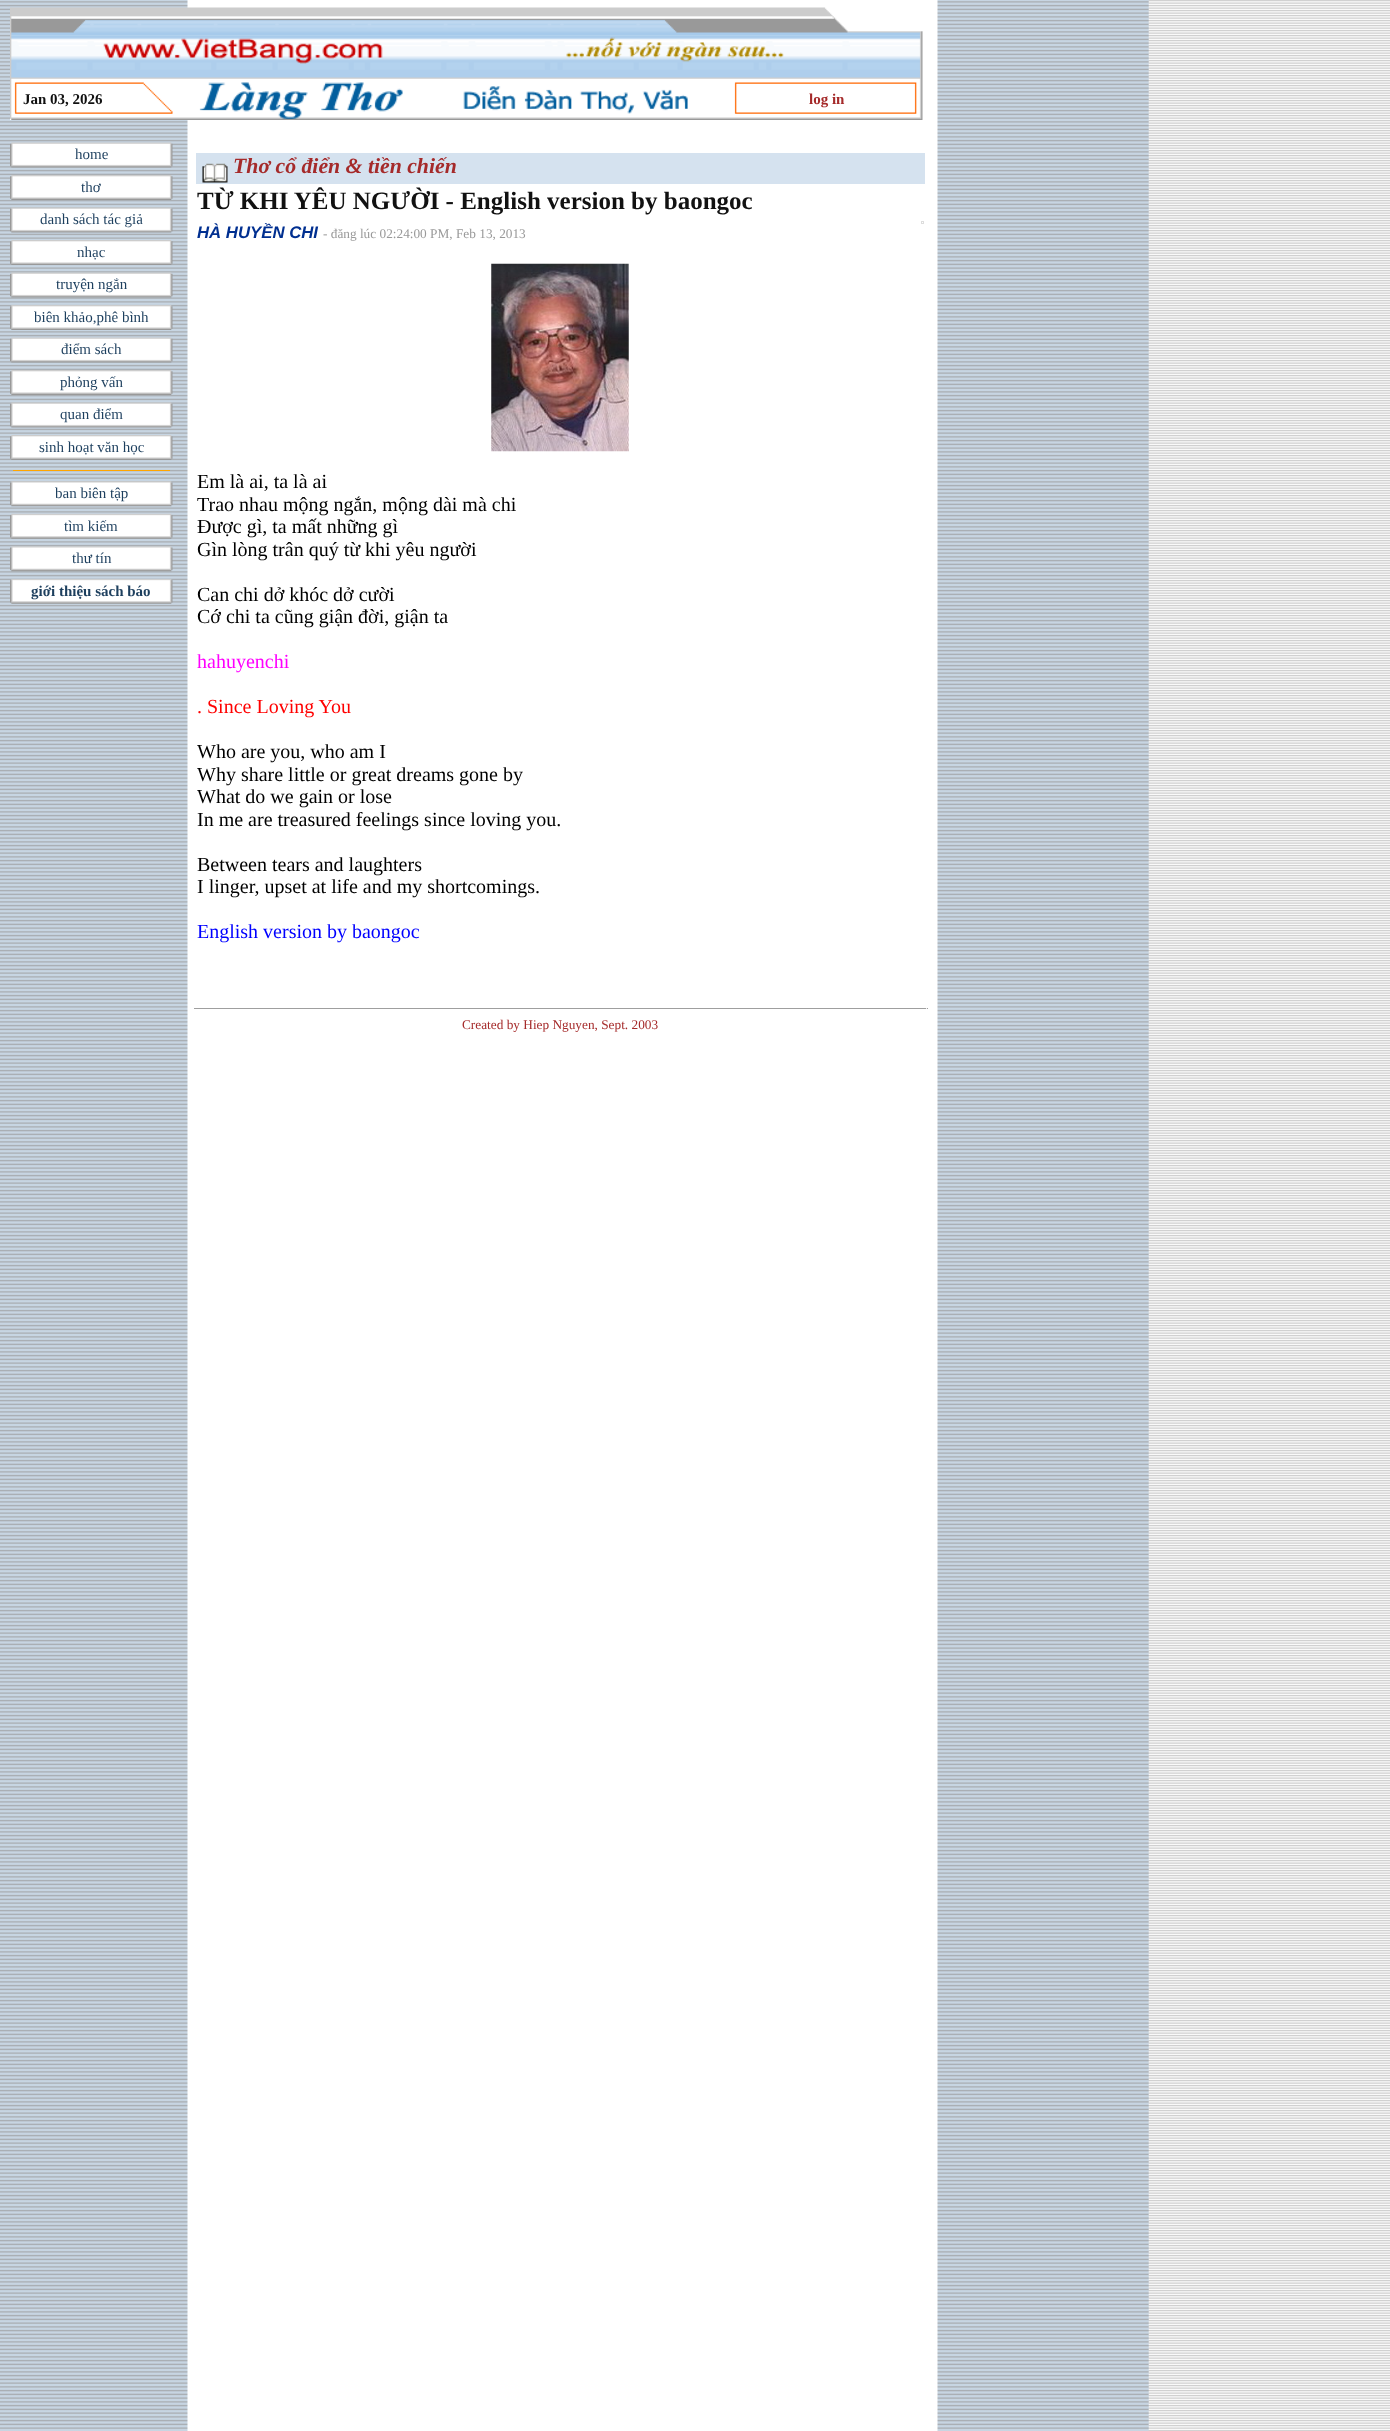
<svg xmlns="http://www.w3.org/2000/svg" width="1390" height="2431">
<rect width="100%" height="100%" fill="#fff"/>
<image x="0" y="0" width="1390" height="2431" href="media/1.png"/>
<image x="10" y="7" width="913" height="73" href="media/2.png"/>
<image x="10" y="80" width="913" height="40" href="media/3.png"/>
<text x="23" y="104" style="font-family:Liberation Serif;font-size:15px;font-weight:bold;fill:#111">Jan 03, 2026</text>
<text x="809" y="104" style="font-family:Liberation Serif;font-size:15px;font-weight:bold;fill:#a52a2a">log in</text>
<image x="10" y="142" width="163" height="26" href="media/4.png"/>
<text x="75" y="159" style="font-family:Liberation Serif;font-size:15px;fill:#1d3f5e">home</text>
<image x="10" y="175" width="163" height="25" href="media/5.png"/>
<text x="81" y="192" style="font-family:Liberation Serif;font-size:15px;fill:#1d3f5e">thơ</text>
<image x="10" y="207" width="163" height="26" href="media/6.png"/>
<text x="40" y="224" style="font-family:Liberation Serif;font-size:15px;fill:#1d3f5e">danh sách tác giả</text>
<image x="10" y="240" width="163" height="25" href="media/7.png"/>
<text x="77" y="257" style="font-family:Liberation Serif;font-size:15px;fill:#1d3f5e">nhạc</text>
<image x="10" y="272" width="163" height="26" href="media/8.png"/>
<text x="56" y="289" style="font-family:Liberation Serif;font-size:15px;fill:#1d3f5e">truyện ngắn</text>
<image x="10" y="305" width="163" height="25" href="media/9.png"/>
<text x="34" y="322" style="font-family:Liberation Serif;font-size:15px;fill:#1d3f5e">biên khảo,phê bình</text>
<image x="10" y="337" width="163" height="26" href="media/4.png"/>
<text x="61" y="354" style="font-family:Liberation Serif;font-size:15px;fill:#1d3f5e">điểm sách</text>
<image x="10" y="370" width="163" height="25" href="media/5.png"/>
<text x="60" y="387" style="font-family:Liberation Serif;font-size:15px;fill:#1d3f5e">phỏng vấn</text>
<image x="10" y="402" width="163" height="26" href="media/6.png"/>
<text x="60" y="419" style="font-family:Liberation Serif;font-size:15px;fill:#1d3f5e">quan điểm</text>
<image x="10" y="435" width="163" height="25" href="media/7.png"/>
<text x="39" y="452" style="font-family:Liberation Serif;font-size:15px;fill:#1d3f5e">sinh hoạt văn học</text>
<rect x="13" y="470" width="157" height="1" fill="#ffa500"/>
<image x="10" y="481" width="163" height="26" href="media/10.png"/>
<text x="55" y="498" style="font-family:Liberation Serif;font-size:15px;fill:#1d3f5e">ban biên tập</text>
<image x="10" y="513" width="163" height="26" href="media/11.png"/>
<text x="64" y="531" style="font-family:Liberation Serif;font-size:15px;fill:#1d3f5e">tìm kiếm</text>
<image x="10" y="546" width="163" height="26" href="media/12.png"/>
<text x="72" y="563" style="font-family:Liberation Serif;font-size:15px;fill:#1d3f5e">thư tín</text>
<image x="10" y="579" width="163" height="25" href="media/13.png"/>
<text x="31" y="596" style="font-family:Liberation Serif;font-size:15px;font-weight:bold;fill:#1d3f5e">giới thiệu sách báo</text>
<rect x="196" y="153" width="729" height="31" fill="#d5e2ef"/>
<image x="202" y="163" width="26" height="20" href="media/14.png"/>
<text x="233" y="173" style="font-family:Liberation Serif;font-size:21.75px;font-weight:bold;font-style:italic;fill:#a52a2a">Thơ cổ điển &amp; tiền chiến</text>
<text x="197" y="209" style="font-family:Liberation Serif;font-size:25px;font-weight:bold;fill:#111">TỪ KHI YÊU NGƯỜI - English version by baongoc</text>
<rect x="921" y="221" width="3" height="1" fill="#ddd"/>
<rect x="923" y="221" width="1" height="3" fill="#ddd"/>
<rect x="921" y="223" width="3" height="1" fill="#ddd"/>
<rect x="921" y="221" width="1" height="3" fill="#ddd"/>
<text x="197" y="238" style="font-family:Liberation Sans;font-size:16.75px;font-weight:bold;font-style:italic;fill:#002f90">HÀ HUYỀN CHI</text>
<text x="323" y="238" style="font-family:Liberation Serif;font-size:13.3px;fill:#999">- đăng lúc 02:24:00 PM, Feb 13, 2013</text>
<image x="491" y="263" width="138" height="189" href="media/15.png"/>
<text x="197" y="488" style="font-family:Liberation Serif;font-size:20px;fill:#000">Em là ai, ta là ai</text>
<text x="197" y="511" style="font-family:Liberation Serif;font-size:20px;fill:#000">Trao nhau mộng ngắn, mộng dài mà chi</text>
<text x="197" y="533" style="font-family:Liberation Serif;font-size:20px;fill:#000">Ðược gì, ta mất những gì</text>
<text x="197" y="556" style="font-family:Liberation Serif;font-size:20px;fill:#000">Gìn lòng trân quý từ khi yêu người</text>
<text x="197" y="601" style="font-family:Liberation Serif;font-size:20px;fill:#000">Can chi dở khóc dở cười</text>
<text x="197" y="623" style="font-family:Liberation Serif;font-size:20px;fill:#000">Cớ chi ta cũng giận đời, giận ta</text>
<text x="197" y="668" style="font-family:Liberation Serif;font-size:20px;fill:#f0f">hahuyenchi</text>
<text x="197" y="713" style="font-family:Liberation Serif;font-size:20px;fill:#f00">. Since Loving You</text>
<text x="197" y="758" style="font-family:Liberation Serif;font-size:20px;fill:#000">Who are you, who am I</text>
<text x="197" y="781" style="font-family:Liberation Serif;font-size:20px;fill:#000">Why share little or great dreams gone by</text>
<text x="197" y="803" style="font-family:Liberation Serif;font-size:20px;fill:#000">What do we gain or lose</text>
<text x="197" y="826" style="font-family:Liberation Serif;font-size:20px;fill:#000">In me are treasured feelings since loving you.</text>
<text x="197" y="871" style="font-family:Liberation Serif;font-size:20px;fill:#000">Between tears and laughters</text>
<text x="197" y="893" style="font-family:Liberation Serif;font-size:20px;fill:#000">I linger, upset at life and my shortcomings.</text>
<text x="197" y="938" style="font-family:Liberation Serif;font-size:20px;fill:#00f">English version by baongoc</text>
<rect x="194" y="1008" width="734" height="1" fill="#9f9f9f"/>
<rect x="926" y="1008" width="1" height="1" fill="#eee"/>
<text x="462" y="1029" style="font-family:Liberation Serif;font-size:13.3px;fill:#a52a2a">Created by Hiep Nguyen, Sept. 2003</text>
</svg>
